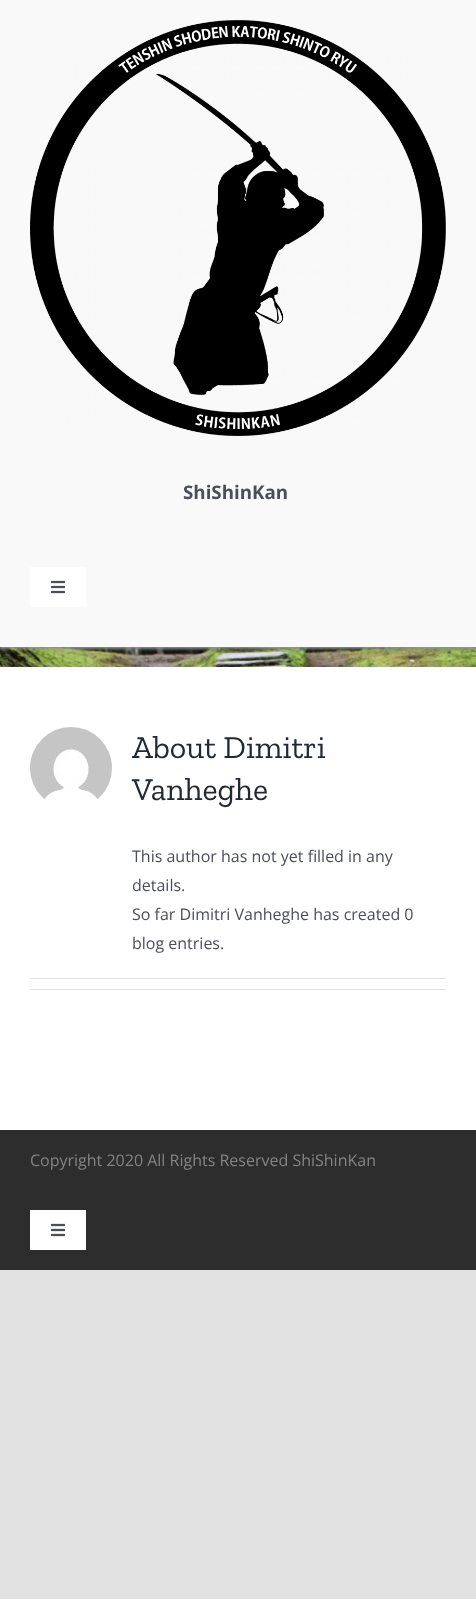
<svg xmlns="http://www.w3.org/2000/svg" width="476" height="1599">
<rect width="100%" height="100%" fill="#e2e2e2"/>
<rect y="667" width="476" height="463" fill="#fff"/>
<image x="0" y="647" width="476" height="20" href="media/3.png"/>
<rect width="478" height="649" fill="#919191" filter="blur(1.5px)"/>
<rect width="476" height="647" fill="#f9f9f9"/>
<image x="30" y="20" width="416" height="416" href="media/1.png"/>
<text x="183" y="499" style="font-family:Open Sans;font-size:18.75px;font-weight:bold;fill:#4a4e57">ShiShinKan</text>
<rect x="30" y="567" width="56" height="40" fill="#fff"/>
<image x="51" y="580" width="14" height="14" href="media/2.png"/>
<image x="30" y="727" width="82" height="72" href="media/4.png"/>
<text x="132" y="758" style="font-family:Zilla Slab;font-size:32px;fill:#212934">About Dimitri</text>
<text x="132" y="800" style="font-family:Zilla Slab;font-size:32px;fill:#212934">Vanheghe</text>
<text x="132" y="862" style="font-family:Open Sans;font-size:16px;fill:#4a4e57">This author has not yet filled in any</text>
<text x="132" y="891" style="font-family:Open Sans;font-size:16px;fill:#4a4e57">details.</text>
<text x="132" y="920" style="font-family:Open Sans;font-size:16px;fill:#4a4e57">So far Dimitri Vanheghe has created 0</text>
<text x="132" y="949" style="font-family:Open Sans;font-size:16px;fill:#4a4e57">blog entries.</text>
<rect x="30" y="978" width="416" height="1" fill="#e2e2e2"/>
<rect x="30" y="989" width="416" height="1" fill="#e2e2e2"/>
<rect y="1130" width="476" height="140" fill="#2d2d2d"/>
<text x="30" y="1166" style="font-family:Open Sans;font-size:16px;fill:#848484">Copyright 2020 All Rights Reserved ShiShinKan</text>
<rect x="30" y="1210" width="56" height="40" fill="#fff"/>
<image x="51" y="1223" width="14" height="14" href="media/2.png"/>
</svg>
